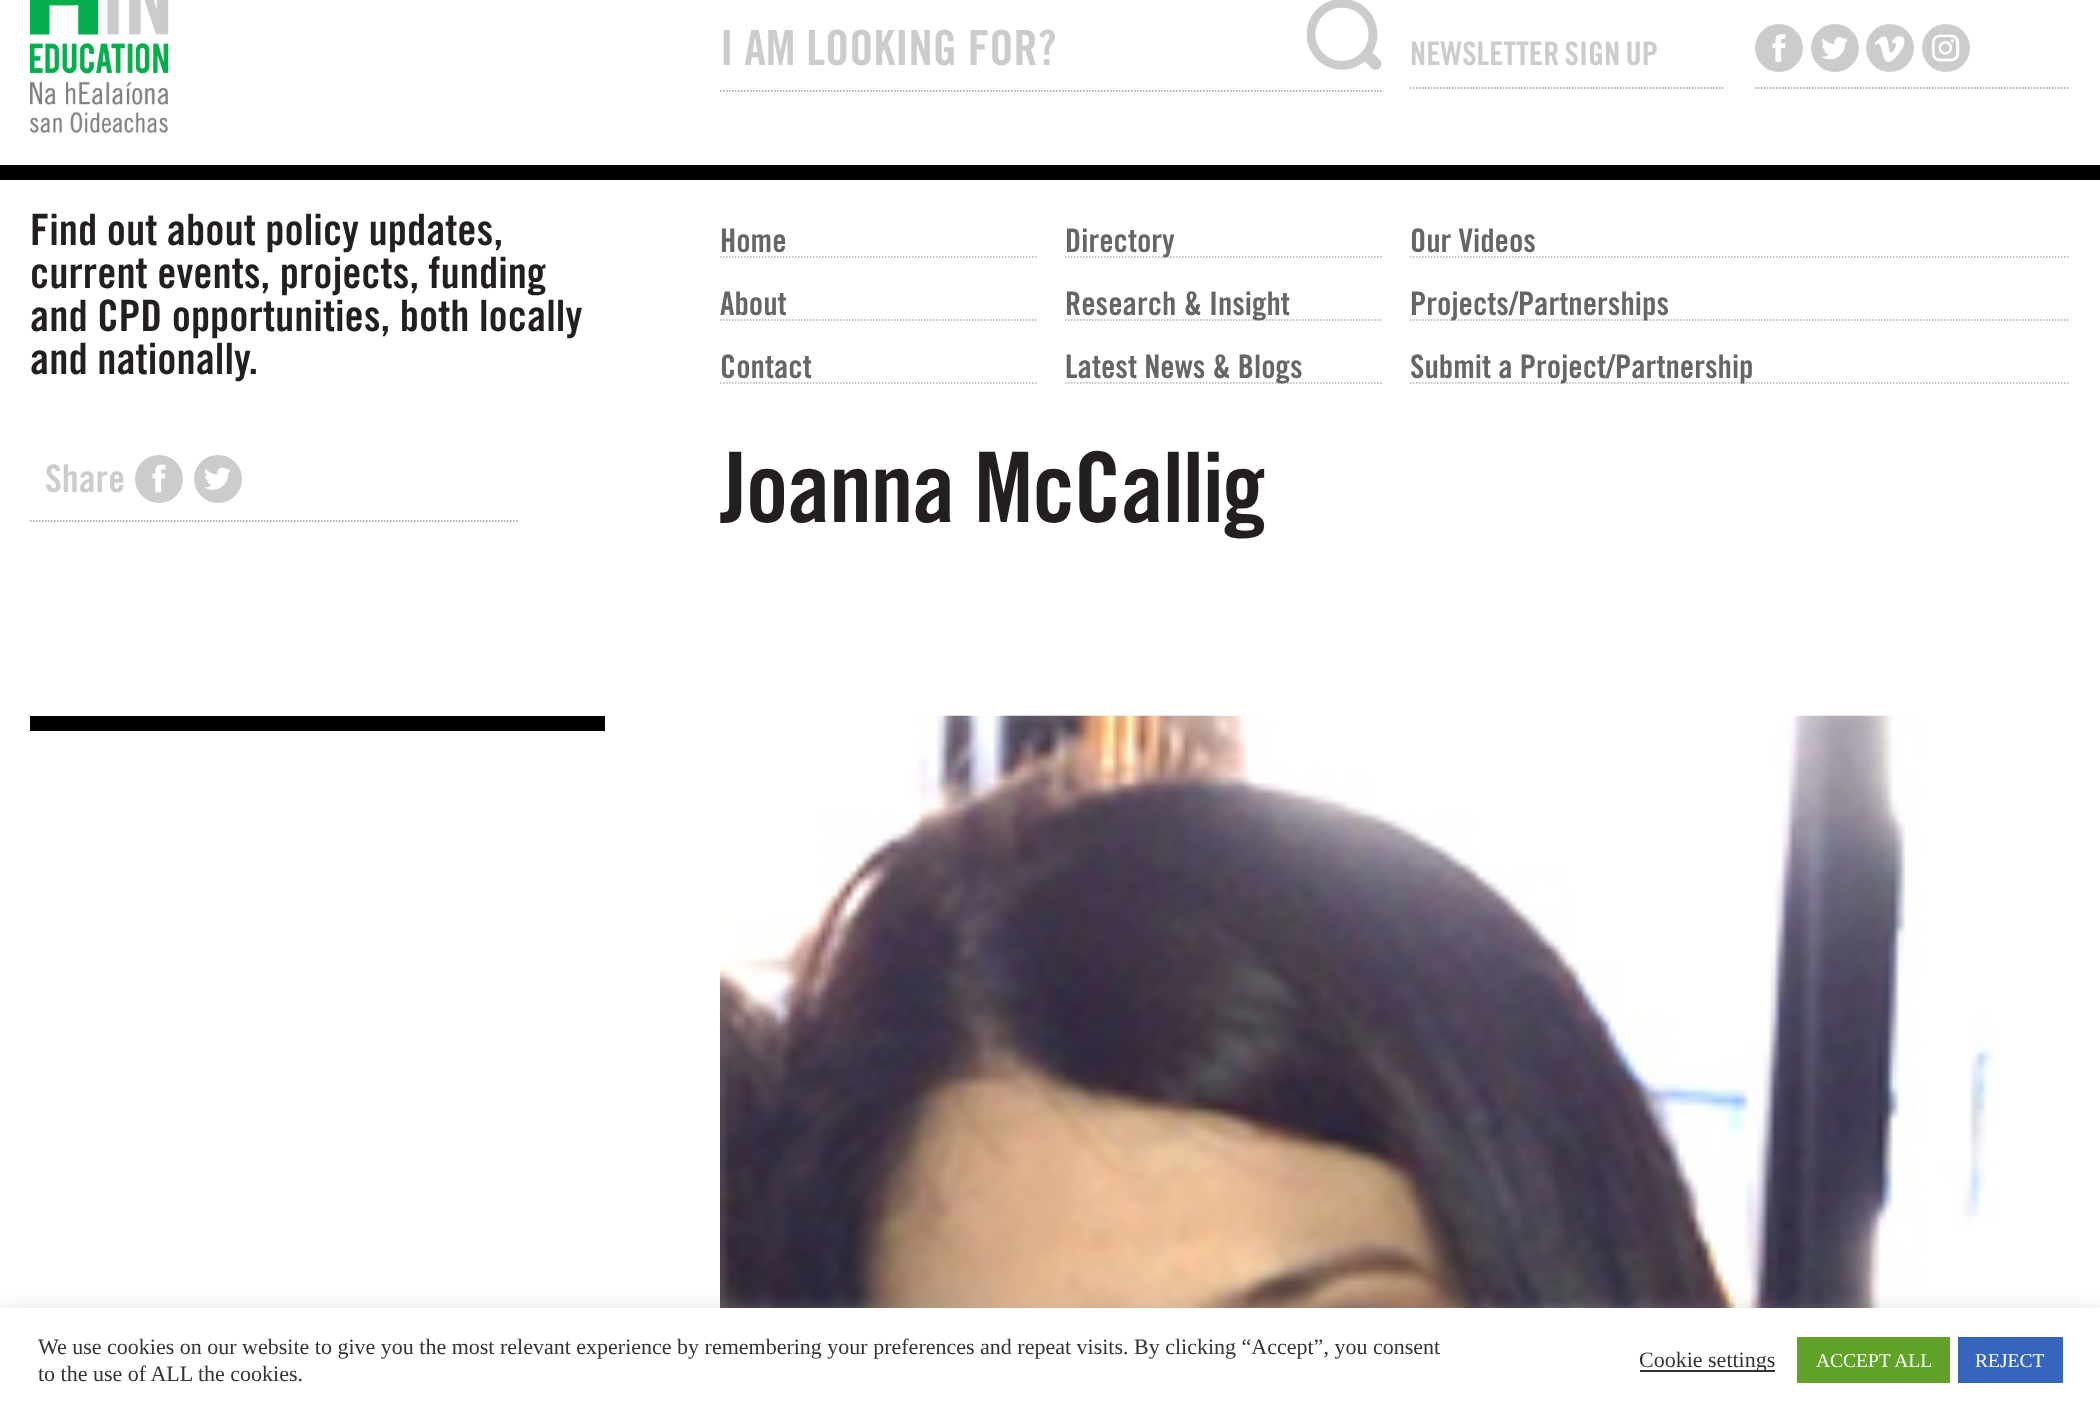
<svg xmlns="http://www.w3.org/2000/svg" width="2100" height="1411">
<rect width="100%" height="100%" fill="#fff"/>
<image x="30" y="0" width="139" height="133" href="media/1.png"/>
<path d="M720 91h661.5" fill="none" stroke="#999" stroke-width="1.5" stroke-dasharray="1.5 1.5"/>
<text x="720" y="65" style="font-family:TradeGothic;font-size:48.5px;font-weight:bold;fill:#ccc">I AM LOOKING FOR?</text>
<image x="1307" y="0" width="75" height="70" href="media/2.png"/>
<path d="M1410 88h315" fill="none" stroke="#999" stroke-width="1.5" stroke-dasharray="1.5 1.5"/>
<text x="1410" y="65" word-spacing="-2" style="font-family:TradeGothic;font-size:32.4px;font-weight:bold;fill:#ccc">NEWSLETTER SIGN UP</text>
<path d="M1755 88h315" fill="none" stroke="#999" stroke-width="1.5" stroke-dasharray="1.5 1.5"/>
<circle cx="1779" cy="48" r="24" fill="#ccc"/>
<image x="1772" y="34" width="14" height="28" href="media/3.png"/>
<circle cx="1835" cy="48" r="24" fill="#ccc"/>
<image x="1821" y="37" width="27" height="23" href="media/4.png"/>
<circle cx="1890" cy="48" r="24" fill="#ccc"/>
<image x="1874" y="36" width="31" height="27" href="media/5.png"/>
<circle cx="1946" cy="48" r="24" fill="#ccc"/>
<image x="1932" y="34" width="28" height="28" href="media/6.png"/>
<rect y="165" width="2100" height="15" fill="#000"/>
<text x="30" y="245" style="font-family:TradeGothic;font-size:43.25px;font-weight:bold;fill:#231f20">Find out about policy updates,</text>
<text x="30" y="288" style="font-family:TradeGothic;font-size:43.25px;font-weight:bold;fill:#231f20">current events, projects, funding</text>
<text x="30" y="331" style="font-family:TradeGothic;font-size:43.25px;font-weight:bold;fill:#231f20">and CPD opportunities, both locally</text>
<text x="30" y="374" style="font-family:TradeGothic;font-size:43.25px;font-weight:bold;fill:#231f20">and nationally.</text>
<path d="M720 257h316.5" fill="none" stroke="#b2b2b2" stroke-width="1.5" stroke-dasharray="1.5 1.5"/>
<text x="720" y="252" style="font-family:TradeGothic;font-size:32.4px;font-weight:bold;fill:#666">Home</text>
<path d="M720 320h316.5" fill="none" stroke="#b2b2b2" stroke-width="1.5" stroke-dasharray="1.5 1.5"/>
<text x="720" y="315" style="font-family:TradeGothic;font-size:32.4px;font-weight:bold;fill:#666">About</text>
<path d="M720 383h316.5" fill="none" stroke="#b2b2b2" stroke-width="1.5" stroke-dasharray="1.5 1.5"/>
<text x="720" y="378" style="font-family:TradeGothic;font-size:32.4px;font-weight:bold;fill:#666">Contact</text>
<path d="M1065 257h316.5" fill="none" stroke="#b2b2b2" stroke-width="1.5" stroke-dasharray="1.5 1.5"/>
<text x="1065" y="252" style="font-family:TradeGothic;font-size:32.4px;font-weight:bold;fill:#666">Directory</text>
<path d="M1065 320h316.5" fill="none" stroke="#b2b2b2" stroke-width="1.5" stroke-dasharray="1.5 1.5"/>
<text x="1065" y="315" style="font-family:TradeGothic;font-size:32.4px;font-weight:bold;fill:#666">Research &amp; Insight</text>
<path d="M1065 383h316.5" fill="none" stroke="#b2b2b2" stroke-width="1.5" stroke-dasharray="1.5 1.5"/>
<text x="1065" y="378" style="font-family:TradeGothic;font-size:32.4px;font-weight:bold;fill:#666">Latest News &amp; Blogs</text>
<path d="M1410 257h660" fill="none" stroke="#b2b2b2" stroke-width="1.5" stroke-dasharray="1.5 1.5"/>
<text x="1410" y="252" style="font-family:TradeGothic;font-size:32.4px;font-weight:bold;fill:#666">Our Videos</text>
<path d="M1410 320h660" fill="none" stroke="#b2b2b2" stroke-width="1.5" stroke-dasharray="1.5 1.5"/>
<text x="1410" y="315" style="font-family:TradeGothic;font-size:32.4px;font-weight:bold;fill:#666">Projects/Partnerships</text>
<path d="M1410 383h660" fill="none" stroke="#b2b2b2" stroke-width="1.5" stroke-dasharray="1.5 1.5"/>
<text x="1410" y="378" style="font-family:TradeGothic;font-size:32.4px;font-weight:bold;fill:#666">Submit a Project/Partnership</text>
<path d="M30 521h489" fill="none" stroke="#999" stroke-width="1.5" stroke-dasharray="1.5 1.5"/>
<text x="45" y="492" style="font-family:TradeGothic;font-size:38px;font-weight:bold;fill:#ccc">Share</text>
<circle cx="159" cy="479" r="24" fill="#ccc"/>
<image x="152" y="464" width="14" height="29" href="media/7.png"/>
<circle cx="218" cy="479" r="24" fill="#ccc"/>
<image x="204" y="467" width="27" height="23" href="media/8.png"/>
<text x="720" y="522" style="font-family:TradeGothic;font-size:97.25px;font-weight:bold;letter-spacing:-1.5px;fill:#231f20">Joanna McCallig</text>
<rect x="30" y="716" width="575" height="15" fill="#000"/>
<image x="720" y="715" width="1276" height="593" href="media/9.png"/>
<rect y="1307" width="2100" height="103" fill="#acabab4d" filter="blur(7.5px)"/>
<rect y="1308" width="2100" height="103" fill="#fff"/>
<text x="38" y="1354" style="font-family:Liberation Serif;font-size:22px;fill:#333">We use cookies on our website to give you the most relevant experience by remembering your preferences and repeat visits. By clicking “Accept”, you consent</text>
<text x="38" y="1381" style="font-family:Liberation Serif;font-size:22px;fill:#333">to the use of ALL the cookies.</text>
<rect x="1640" y="1370" width="135" height="2" fill="#333"/>
<text x="1639" y="1367" style="font-family:Liberation Serif;font-size:22px;fill:#333">Cookie settings</text>
<rect x="1797" y="1337" width="153" height="46" fill="#61a229"/>
<text x="1816" y="1367" style="font-family:Liberation Serif;font-size:19.5px;fill:#fff">ACCEPT ALL</text>
<rect x="1958" y="1337" width="105" height="46" fill="#3566bb"/>
<text x="1975" y="1367" style="font-family:Liberation Serif;font-size:19.5px;fill:#fff">REJECT</text>
</svg>
